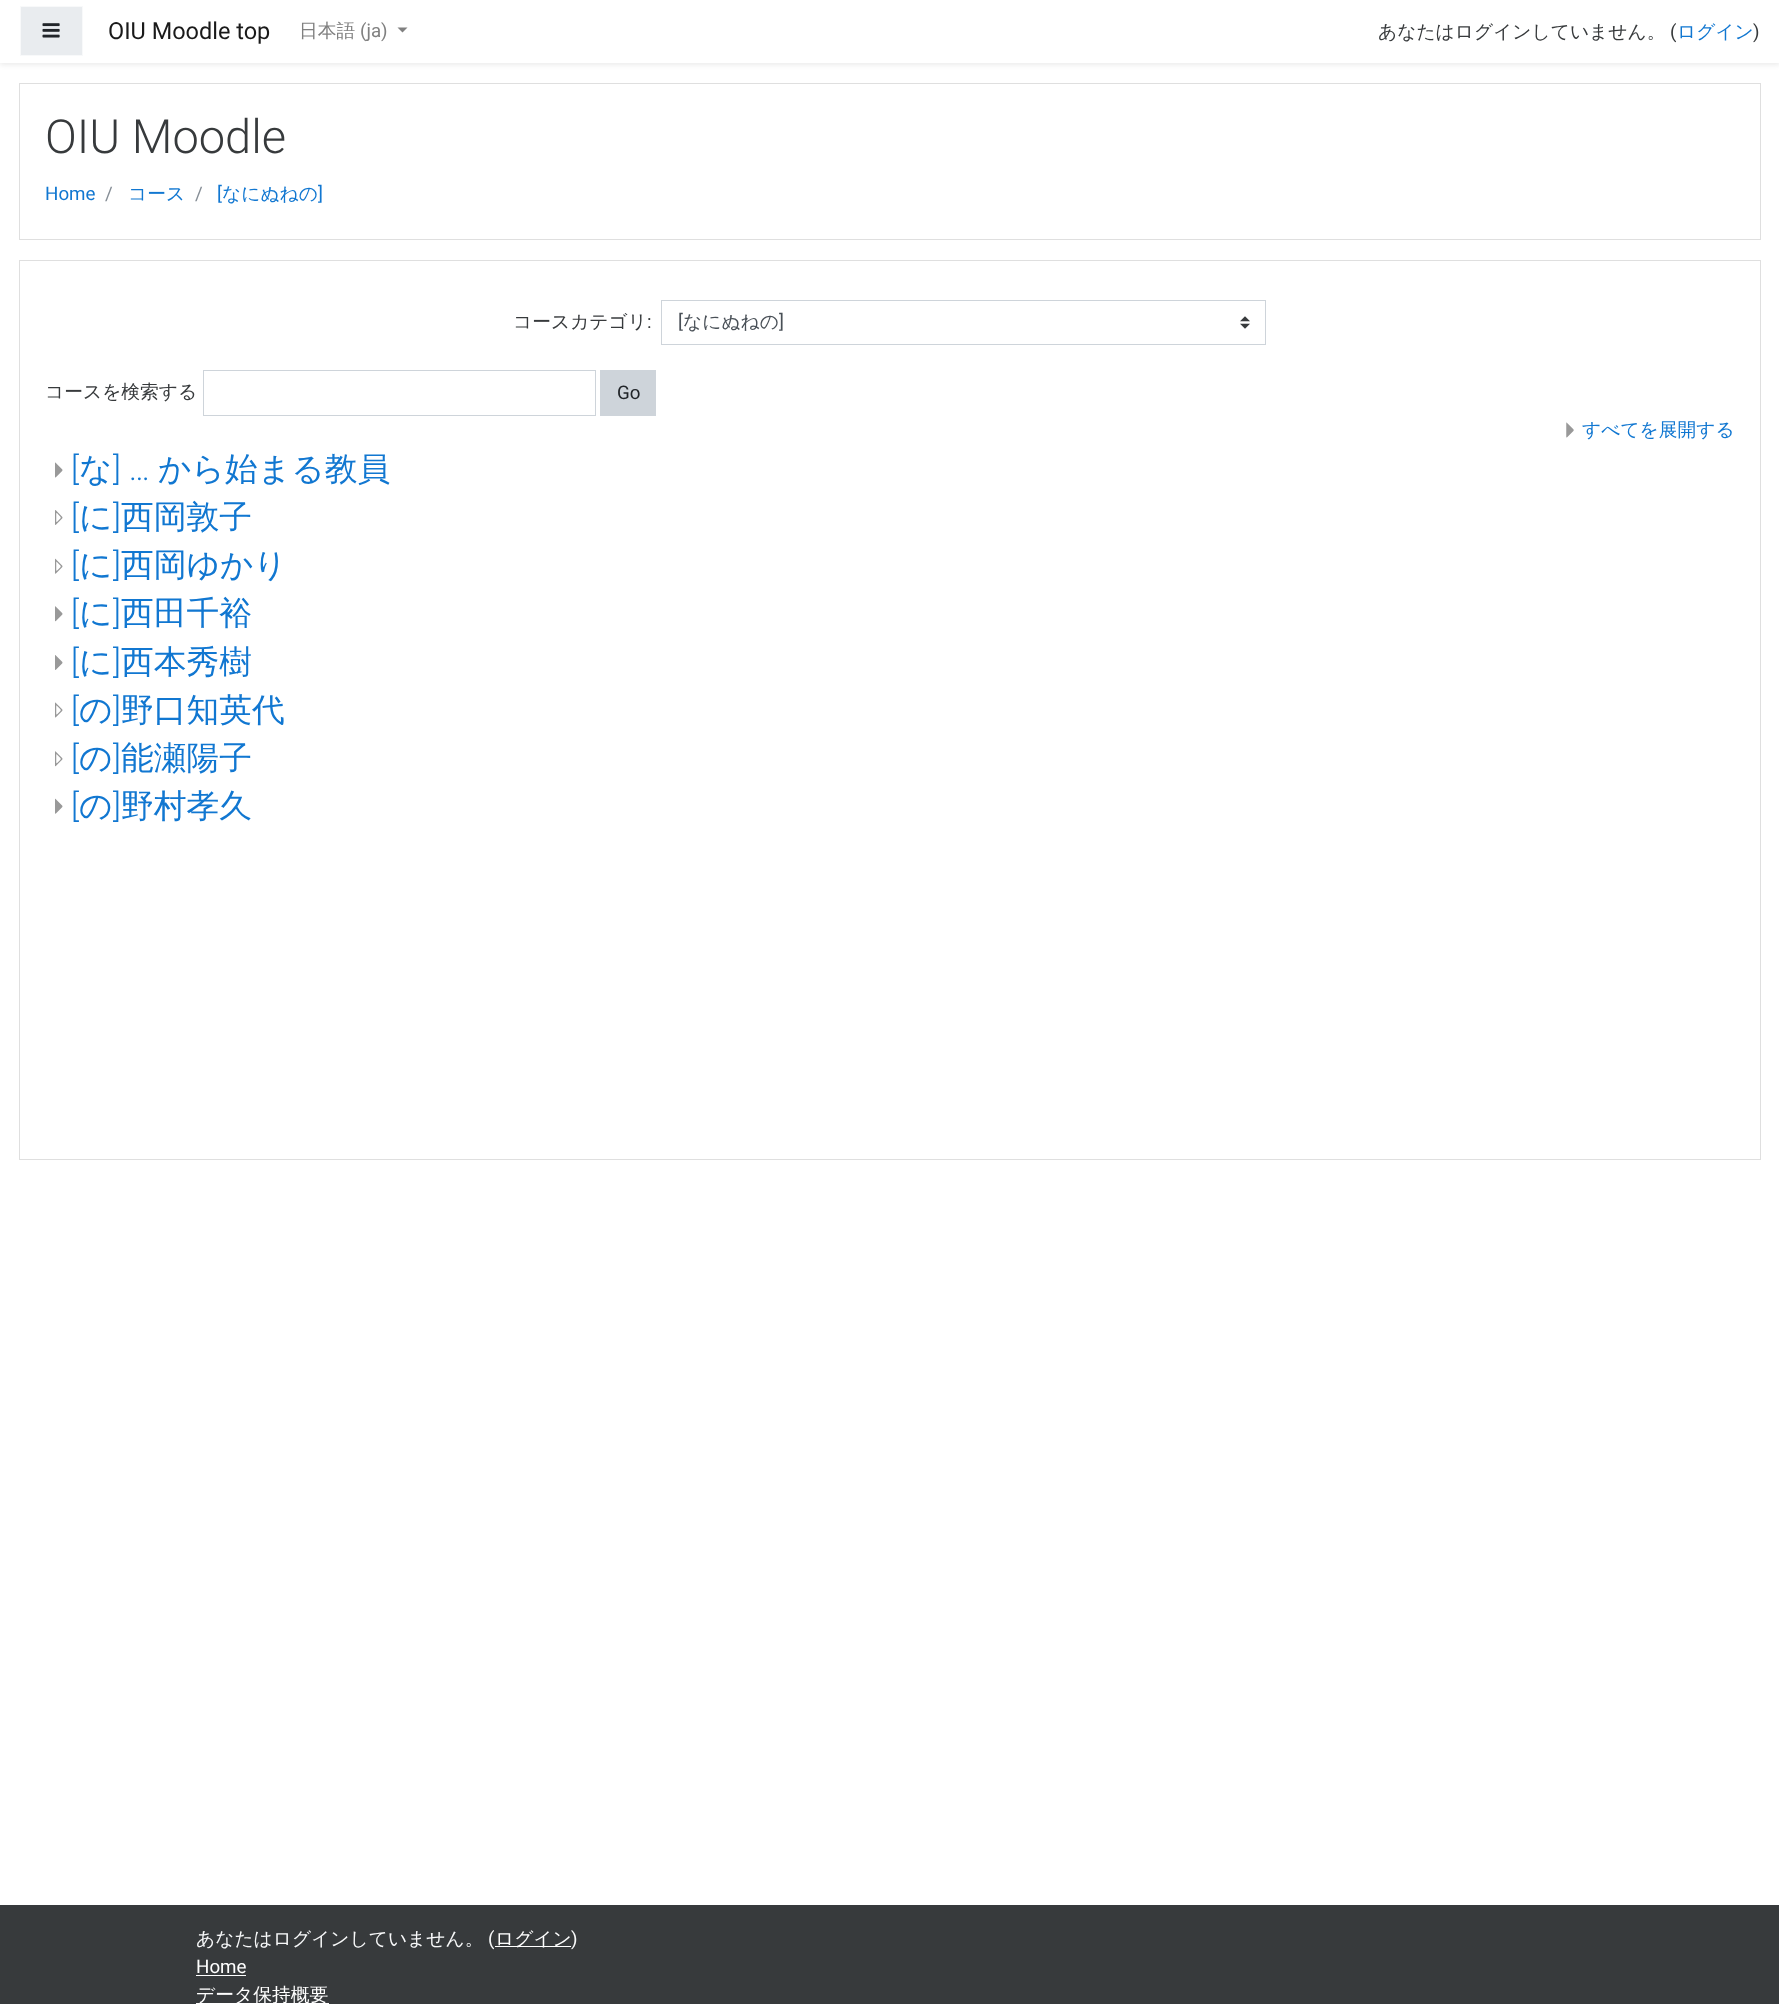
<svg xmlns="http://www.w3.org/2000/svg" width="1779" height="2004">
<rect width="100%" height="100%" fill="#fff"/>
<rect y="3" width="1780" height="62" fill="#00000014" filter="blur(2.5px)"/>
<rect width="1779" height="63" fill="#fff"/>
<rect x="20.5" y="6.5" width="62" height="49" fill="#e9ecef" stroke="#f8f9fa"/>
<image x="42" y="23" width="18" height="15" href="media/1.png"/>
<text x="108" y="39" style="font-family:Roboto;font-size:23.5px;fill:#1a1a1a">OIU Moodle top</text>
<text x="299" y="37" style="font-family:WenQuanYi Zen Hei;font-size:18.75px;font-weight:500;fill:#808080">日本語</text>
<text x="360" y="37" style="font-family:Roboto;font-size:18.75px;fill:#808080">(ja)</text>
<path d="M397.5 27.5h10l-5 5z" fill="#808080"/>
<text x="1378" y="38" style="font-family:WenQuanYi Zen Hei;font-size:18.75px;font-weight:500;fill:#373a3c">あなたはログインしていません。</text>
<text x="1670" y="38" style="font-family:Roboto;font-size:18.75px;fill:#373a3c">(</text>
<text x="1677" y="38" style="font-family:WenQuanYi Zen Hei;font-size:18.75px;font-weight:500;fill:#1177d1">ログイン</text>
<text x="1753" y="38" style="font-family:Roboto;font-size:18.75px;fill:#373a3c">)</text>
<rect x="19.5" y="83.5" width="1741" height="156" fill="none" stroke="#dfdfdf"/>
<text x="45" y="153" style="font-family:Roboto;font-size:47px;font-weight:300;fill:#373a3c">OIU Moodle</text>
<text x="45" y="200" style="font-family:Roboto;font-size:18.75px;fill:#1177d1">Home</text>
<text x="105" y="200" style="font-family:Roboto;font-size:18.75px;fill:#868e96">/</text>
<text x="128" y="200" style="font-family:WenQuanYi Zen Hei;font-size:18.75px;font-weight:500;fill:#1177d1">コース</text>
<text x="195" y="200" style="font-family:Roboto;font-size:18.75px;fill:#868e96">/</text>
<text x="217" y="200" style="font-family:Roboto;font-size:18.75px;fill:#1177d1">[</text>
<text x="222" y="200" style="font-family:WenQuanYi Zen Hei;font-size:18.75px;font-weight:500;fill:#1177d1">なにぬねの</text>
<text x="318" y="200" style="font-family:Roboto;font-size:18.75px;fill:#1177d1">]</text>
<rect x="19.5" y="260.5" width="1741" height="899" fill="none" stroke="#dfdfdf"/>
<text x="513" y="328" style="font-family:WenQuanYi Zen Hei;font-size:18.75px;font-weight:500;fill:#373a3c">コースカテゴリ</text>
<text x="647" y="328" style="font-family:Roboto;font-size:18.75px;fill:#373a3c">:</text>
<image x="1240" y="316" width="10" height="13" href="media/2.png"/>
<rect x="661.5" y="300.5" width="604" height="44" fill="none" stroke="#ced4da"/>
<text x="678" y="328" style="font-family:Roboto;font-size:18.75px;fill:#495057">[</text>
<text x="683" y="328" style="font-family:WenQuanYi Zen Hei;font-size:18.75px;font-weight:500;fill:#495057">なにぬねの</text>
<text x="779" y="328" style="font-family:Roboto;font-size:18.75px;fill:#495057">]</text>
<text x="45" y="398" style="font-family:WenQuanYi Zen Hei;font-size:18.75px;font-weight:500;fill:#373a3c">コースを検索する</text>
<rect x="203.5" y="370.5" width="392" height="45" fill="none" stroke="#ced4da"/>
<rect x="600" y="370" width="56" height="46" fill="#ced4da"/>
<text x="617" y="399" style="font-family:Roboto;font-size:18.75px;fill:#212529">Go</text>
<image x="1566" y="422" width="8" height="16" href="media/3.png"/>
<text x="1582" y="436" style="font-family:WenQuanYi Zen Hei;font-size:18.75px;font-weight:500;fill:#1177d1">すべてを展開する</text>
<image x="55" y="462" width="8" height="16" href="media/4.png"/>
<text x="71" y="480" style="font-family:Roboto;font-size:32.75px;font-weight:300;fill:#1177d1">[</text>
<text x="79" y="480" style="font-family:WenQuanYi Zen Hei;font-size:32.75px;font-weight:500;fill:#1177d1">な</text>
<text x="113" y="480" style="font-family:Roboto;font-size:32.75px;font-weight:300;fill:#1177d1">] …</text>
<text x="158" y="480" style="font-family:WenQuanYi Zen Hei;font-size:32.75px;font-weight:500;fill:#1177d1">から始まる教員</text>
<image x="55" y="510" width="8" height="15" href="media/5.png"/>
<text x="71" y="528" style="font-family:Roboto;font-size:32.75px;font-weight:300;fill:#1177d1">[</text>
<text x="79" y="528" style="font-family:WenQuanYi Zen Hei;font-size:32.75px;font-weight:500;fill:#1177d1">に</text>
<text x="113" y="528" style="font-family:Roboto;font-size:32.75px;font-weight:300;fill:#1177d1">]</text>
<text x="121" y="528" style="font-family:WenQuanYi Zen Hei;font-size:32.75px;font-weight:500;fill:#1177d1">西岡敦子</text>
<image x="55" y="558" width="8" height="16" href="media/6.png"/>
<text x="71" y="576" style="font-family:Roboto;font-size:32.75px;font-weight:300;fill:#1177d1">[</text>
<text x="79" y="576" style="font-family:WenQuanYi Zen Hei;font-size:32.75px;font-weight:500;fill:#1177d1">に</text>
<text x="113" y="576" style="font-family:Roboto;font-size:32.75px;font-weight:300;fill:#1177d1">]</text>
<text x="121" y="576" style="font-family:WenQuanYi Zen Hei;font-size:32.75px;font-weight:500;fill:#1177d1">西岡ゆかり</text>
<image x="55" y="606" width="8" height="16" href="media/7.png"/>
<text x="71" y="624" style="font-family:Roboto;font-size:32.75px;font-weight:300;fill:#1177d1">[</text>
<text x="79" y="624" style="font-family:WenQuanYi Zen Hei;font-size:32.75px;font-weight:500;fill:#1177d1">に</text>
<text x="113" y="624" style="font-family:Roboto;font-size:32.75px;font-weight:300;fill:#1177d1">]</text>
<text x="121" y="624" style="font-family:WenQuanYi Zen Hei;font-size:32.75px;font-weight:500;fill:#1177d1">西田千裕</text>
<image x="55" y="655" width="8" height="15" href="media/8.png"/>
<text x="71" y="673" style="font-family:Roboto;font-size:32.75px;font-weight:300;fill:#1177d1">[</text>
<text x="79" y="673" style="font-family:WenQuanYi Zen Hei;font-size:32.75px;font-weight:500;fill:#1177d1">に</text>
<text x="113" y="673" style="font-family:Roboto;font-size:32.75px;font-weight:300;fill:#1177d1">]</text>
<text x="121" y="673" style="font-family:WenQuanYi Zen Hei;font-size:32.75px;font-weight:500;fill:#1177d1">西本秀樹</text>
<image x="55" y="702" width="8" height="16" href="media/9.png"/>
<text x="71" y="721" style="font-family:Roboto;font-size:32.75px;font-weight:300;fill:#1177d1">[</text>
<text x="79" y="721" style="font-family:WenQuanYi Zen Hei;font-size:32.75px;font-weight:500;fill:#1177d1">の</text>
<text x="113" y="721" style="font-family:Roboto;font-size:32.75px;font-weight:300;fill:#1177d1">]</text>
<text x="121" y="721" style="font-family:WenQuanYi Zen Hei;font-size:32.75px;font-weight:500;fill:#1177d1">野口知英代</text>
<image x="55" y="751" width="8" height="16" href="media/10.png"/>
<text x="71" y="769" style="font-family:Roboto;font-size:32.75px;font-weight:300;fill:#1177d1">[</text>
<text x="79" y="769" style="font-family:WenQuanYi Zen Hei;font-size:32.75px;font-weight:500;fill:#1177d1">の</text>
<text x="113" y="769" style="font-family:Roboto;font-size:32.75px;font-weight:300;fill:#1177d1">]</text>
<text x="121" y="769" style="font-family:WenQuanYi Zen Hei;font-size:32.75px;font-weight:500;fill:#1177d1">能瀬陽子</text>
<image x="55" y="798" width="8" height="16" href="media/11.png"/>
<text x="71" y="817" style="font-family:Roboto;font-size:32.75px;font-weight:300;fill:#1177d1">[</text>
<text x="79" y="817" style="font-family:WenQuanYi Zen Hei;font-size:32.75px;font-weight:500;fill:#1177d1">の</text>
<text x="113" y="817" style="font-family:Roboto;font-size:32.75px;font-weight:300;fill:#1177d1">]</text>
<text x="121" y="817" style="font-family:WenQuanYi Zen Hei;font-size:32.75px;font-weight:500;fill:#1177d1">野村孝久</text>
<rect y="1905" width="1779" height="99" fill="#373a3c"/>
<text x="196" y="1945" style="font-family:WenQuanYi Zen Hei;font-size:18.75px;font-weight:500;fill:#f8f9fa">あなたはログインしていません。</text>
<text x="488" y="1945" style="font-family:Roboto;font-size:18.75px;fill:#f8f9fa">(</text>
<rect x="495" y="1946" width="76" height="1" fill="#fff"/>
<text x="495" y="1945" style="font-family:WenQuanYi Zen Hei;font-size:18.75px;font-weight:500;fill:#fff">ログイン</text>
<text x="571" y="1945" style="font-family:Roboto;font-size:18.75px;fill:#f8f9fa">)</text>
<text x="196" y="1973" style="font-family:Roboto;font-size:18.75px;fill:#fff">Home</text>
<rect x="196" y="1975" width="50" height="1" fill="#fff"/>
<rect x="196" y="2003" width="133" height="1" fill="#fff"/>
<text x="196" y="2001" style="font-family:WenQuanYi Zen Hei;font-size:18.75px;font-weight:500;fill:#fff">データ保持概要</text>
</svg>
